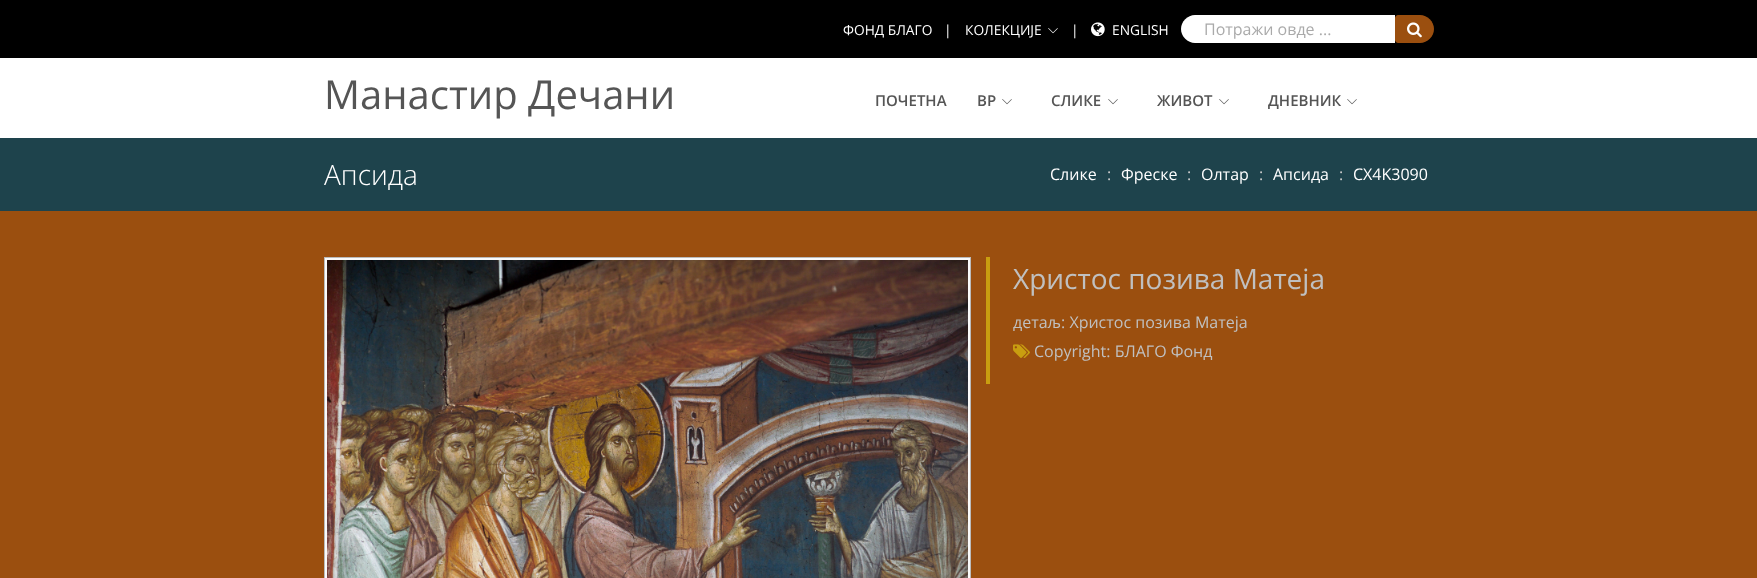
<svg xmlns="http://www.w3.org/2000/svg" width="1757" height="578">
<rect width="100%" height="100%" fill="#fff"/>
<rect width="1757" height="58" fill="#000"/>
<text x="843" y="35" style="font-family:Open Sans;font-size:13.75px;fill:#fff">ФОНД БЛАГО</text>
<text x="944" y="35" style="font-family:Open Sans;font-size:13.75px;fill:#fff">|</text>
<text x="965" y="35" style="font-family:Open Sans;font-size:13.75px;fill:#fff">КОЛЕКЦИЈЕ</text>
<image x="1048" y="28" width="10" height="6" href="media/1.png"/>
<text x="1071" y="35" style="font-family:Open Sans;font-size:13.75px;fill:#fff">|</text>
<image x="1091" y="22" width="14" height="15" href="media/2.png"/>
<text x="1112" y="35" style="font-family:Open Sans;font-size:13.75px;fill:#fff">ENGLISH</text>
<path d="M1195 15h200v28h-200c-7.5 0-14-6.5-14-14c0-7.5 6.5-14 14-14z" fill="#fff"/>
<text x="1204" y="35" style="font-family:Open Sans;font-size:16px;fill:#aaa">Потражи овде ...</text>
<path d="M1398 15h22c7.5 0 14 6.5 14 14c0 7.5-6.5 14-14 14h-22c-1.5 0-3-1.5-3-3v-22c0-1.5 1.5-3 3-3z" fill="#9b4f0f"/>
<image x="1407" y="22" width="15" height="16" href="media/3.png"/>
<text x="324" y="109" style="font-family:Open Sans;font-size:40px;fill:#555">Манастир Дечани</text>
<text x="875" y="106" style="font-family:Open Sans;font-size:15px;font-weight:600;fill:#555">ПОЧЕТНА</text>
<text x="977" y="106" style="font-family:Open Sans;font-size:15px;font-weight:600;fill:#555">ВР</text>
<image x="1002" y="99" width="10" height="6" href="media/4.png"/>
<text x="1051" y="106" style="font-family:Open Sans;font-size:15px;font-weight:600;fill:#555">СЛИКЕ</text>
<image x="1108" y="99" width="10" height="6" href="media/4.png"/>
<text x="1157" y="106" style="font-family:Open Sans;font-size:15px;font-weight:600;fill:#555">ЖИВОТ</text>
<image x="1219" y="99" width="10" height="6" href="media/4.png"/>
<text x="1268" y="106" style="font-family:Open Sans;font-size:15px;font-weight:600;fill:#555">ДНЕВНИК</text>
<image x="1347" y="99" width="10" height="6" href="media/4.png"/>
<rect y="138" width="1757" height="73" fill="#1e434c"/>
<text x="324" y="185" style="font-family:Open Sans;font-size:28px;font-weight:300;fill:#fff">Апсида</text>
<text x="1050" y="180" style="font-family:Open Sans;font-size:16px;fill:#fff">Слике</text>
<text x="1107" y="180" style="font-family:Open Sans;font-size:16px;fill:#ccc">:</text>
<text x="1121" y="180" style="font-family:Open Sans;font-size:16px;fill:#fff">Фреске</text>
<text x="1187" y="180" style="font-family:Open Sans;font-size:16px;fill:#ccc">:</text>
<text x="1201" y="180" style="font-family:Open Sans;font-size:16px;fill:#fff">Олтар</text>
<text x="1259" y="180" style="font-family:Open Sans;font-size:16px;fill:#ccc">:</text>
<text x="1273" y="180" style="font-family:Open Sans;font-size:16px;fill:#fff">Апсида</text>
<text x="1339" y="180" style="font-family:Open Sans;font-size:16px;fill:#ccc">:</text>
<text x="1353" y="180" style="font-family:Open Sans;font-size:16px;fill:#fff">CX4K3090</text>
<rect y="211" width="1757" height="367" fill="#9b4f0f"/>
<rect x="324.5" y="257.5" width="646" height="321" fill="#fafafa" stroke="#bbb"/>
<image x="327" y="260" width="641" height="318" href="media/5.png"/>
<rect x="986" y="257" width="4" height="127" fill="#c99e10"/>
<text x="1013" y="289" style="font-family:Open Sans;font-size:28px;fill:#c0c0c0">Христос позива Матеја</text>
<text x="1013" y="328" style="font-family:Open Sans;font-size:16px;fill:#c0c0c0">детаљ: Христос позива Матеја</text>
<image x="1013" y="344" width="17" height="14" href="media/6.png"/>
<text x="1034" y="357" style="font-family:Open Sans;font-size:16px;fill:#c0c0c0">Copyright: БЛАГО Фонд</text>
</svg>
